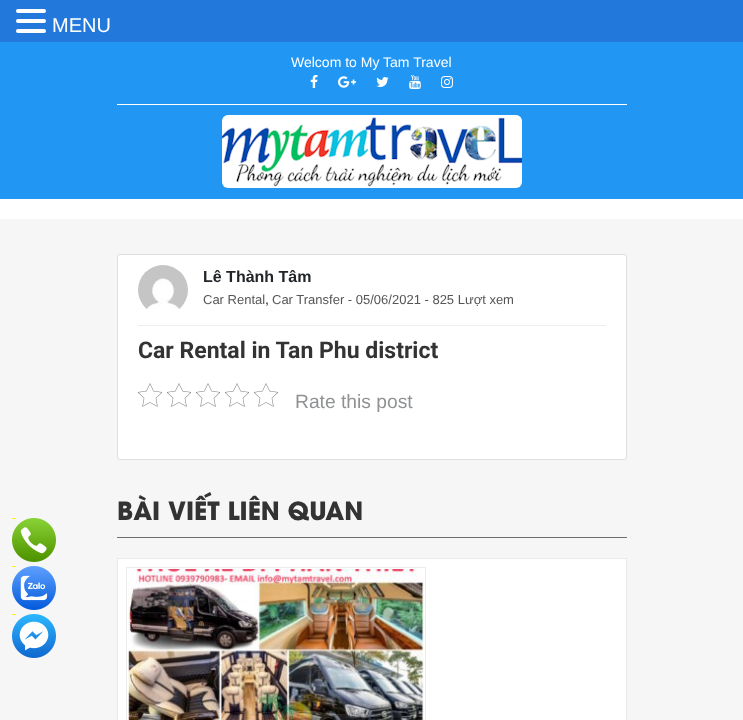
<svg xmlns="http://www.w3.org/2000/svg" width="743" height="720">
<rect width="100%" height="100%" fill="#f6f6f6"/>
<rect width="743" height="42" fill="#2379db"/>
<rect x="16" y="9" width="30" height="4" rx="2" fill="#fff"/>
<rect x="16" y="19" width="30" height="4" rx="2" fill="#fff"/>
<rect x="16" y="29" width="30" height="4" rx="2" fill="#fff"/>
<text x="52" y="32" style="font-family:Liberation Sans;font-size:20px;fill:#fff">MENU</text>
<rect y="42" width="743" height="157" fill="#2196f3"/>
<rect x="117" y="104" width="510" height="1" fill="#fff"/>
<text x="291" y="67" style="font-family:Liberation Sans;font-size:14px;fill:#fff">Welcom to My Tam Travel</text>
<image x="310" y="75" width="8" height="13" href="media/1.png"/>
<image x="338" y="76" width="18" height="12" href="media/2.png"/>
<image x="376" y="77" width="13" height="10" href="media/3.png"/>
<image x="409" y="75" width="12" height="14" href="media/4.png"/>
<image x="441" y="76" width="12" height="12" href="media/5.png"/>
<image x="222" y="115" width="300" height="73" href="media/6.png"/>
<rect y="199" width="743" height="20" fill="#fff"/>
<rect x="117.5" y="254.5" width="509" height="205" rx="2.5" fill="#fff" stroke="#dddfe2"/>
<rect x="138" y="325" width="468" height="1" fill="#eee"/>
<image x="138" y="265" width="50" height="44" href="media/7.png"/>
<text x="203" y="282" style="font-family:Liberation Sans;font-size:16px;font-weight:bold;fill:#212529">Lê Thành Tâm</text>
<text x="203" y="304" style="font-family:Liberation Sans;font-size:13px;fill:#555">Car Rental</text>
<text x="265" y="304" style="font-family:Liberation Sans;font-size:14px;fill:#212529">,</text>
<text x="272" y="304" style="font-family:Liberation Sans;font-size:13px;fill:#555">Car Transfer - 05/06/2021 - 825 Lượt xem</text>
<text x="138" y="358" style="font-family:Roboto;font-size:23px;font-weight:bold;fill:#333">Car Rental in Tan Phu district</text>
<image x="138" y="383" width="24" height="24" href="media/8.png"/>
<image x="167" y="383" width="24" height="24" href="media/8.png"/>
<image x="196" y="383" width="24" height="24" href="media/8.png"/>
<image x="225" y="383" width="24" height="24" href="media/8.png"/>
<image x="254" y="383" width="24" height="24" href="media/8.png"/>
<text x="295" y="408" style="font-family:Liberation Sans;font-size:19.25px;fill:#909294">Rate this post</text>
<rect x="117" y="537" width="510" height="1" fill="#6d6d6d"/>
<text x="117" y="520" style="font-family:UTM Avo;font-size:25px;font-weight:bold;fill:#333">BÀI VIẾT LIÊN QUAN</text>
<rect x="117.5" y="558.5" width="509" height="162" fill="#fff" stroke="#eaeaea"/>
<rect x="126.5" y="567.5" width="299" height="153" fill="none" stroke="#ededed"/>
<image x="128" y="569" width="296" height="151" href="media/9.png"/>
<image x="12" y="518" width="44" height="44" href="media/10.png"/>
<image x="12" y="566" width="44" height="44" href="media/11.png"/>
<image x="12" y="614" width="44" height="44" href="media/12.png"/>
</svg>
